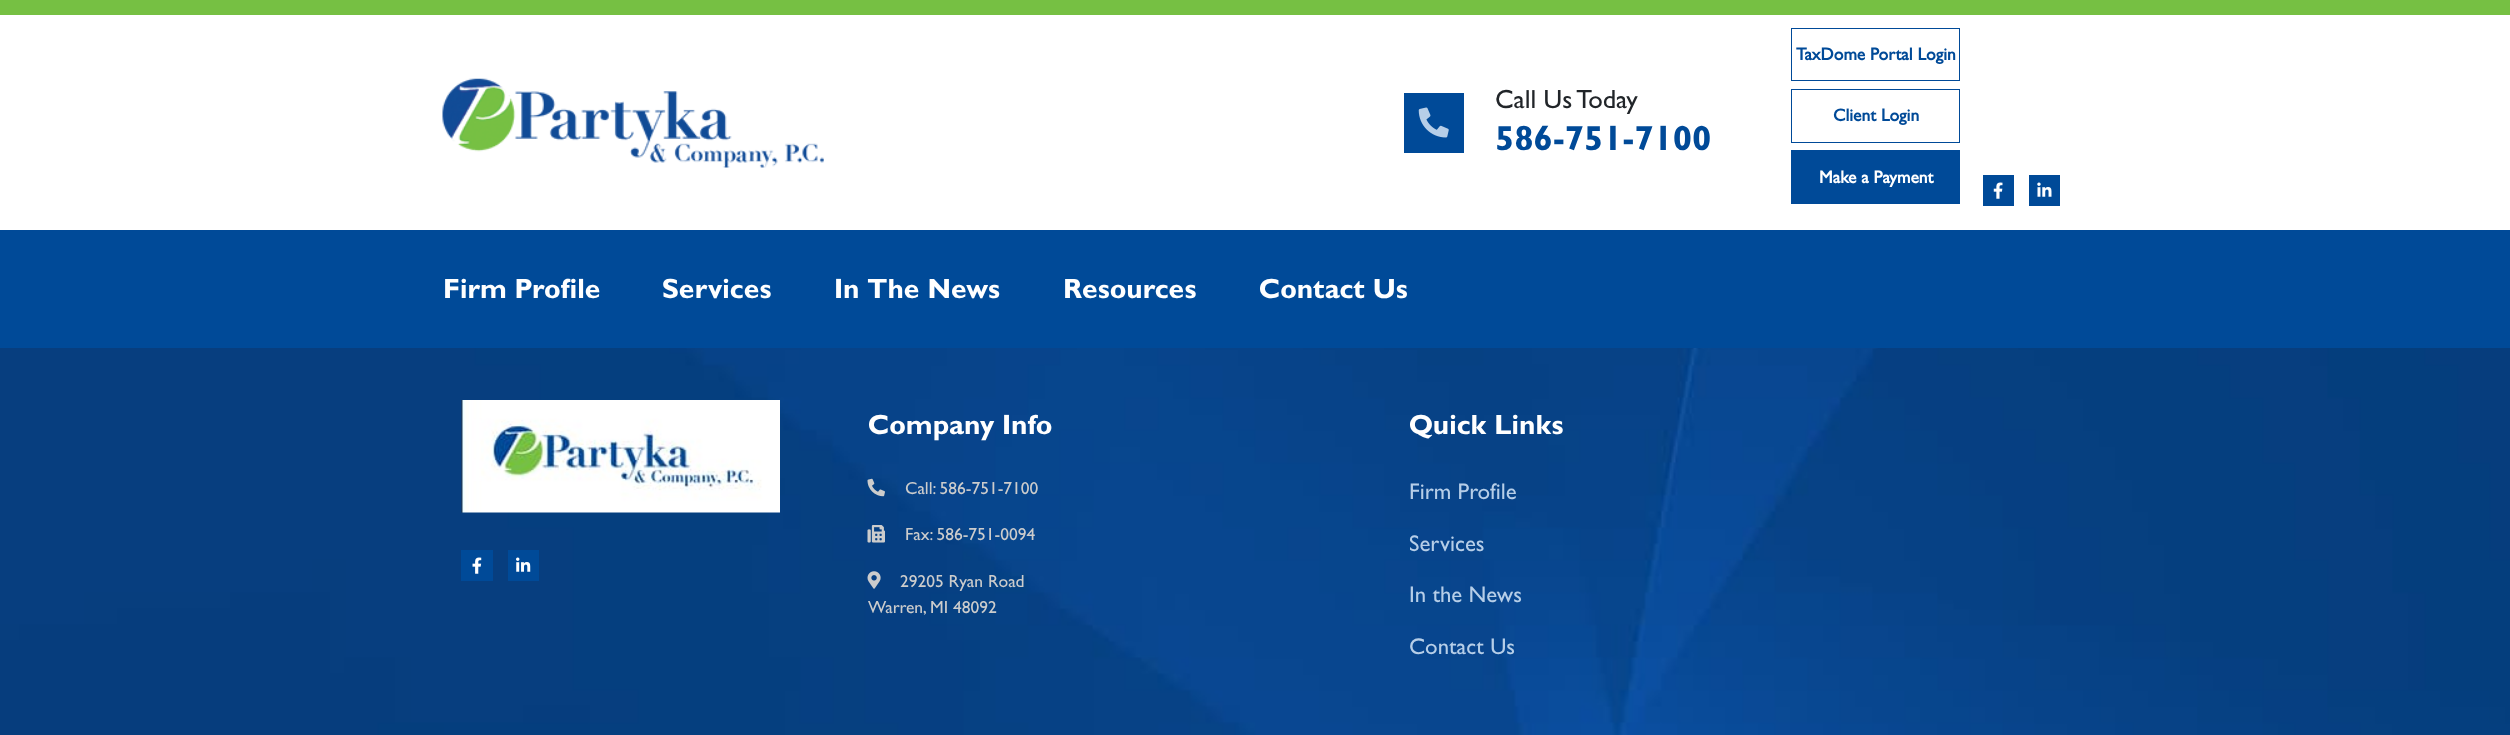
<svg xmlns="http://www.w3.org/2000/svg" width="2510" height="735">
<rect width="100%" height="100%" fill="#fff"/>
<rect width="2510" height="15" fill="#76c043"/>
<image x="442" y="78" width="382" height="90" href="media/1.png"/>
<rect x="1404" y="93" width="60" height="60" fill="#004a98"/>
<image x="1418" y="107" width="31" height="31" href="media/2.png"/>
<text x="1495" y="108" style="font-family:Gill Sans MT;font-size:26.25px;fill:#212529">Call Us Today</text>
<text x="1495" y="150" style="font-family:Gill Sans;font-size:35px;font-weight:bold;fill:#004a98">586-751-7100</text>
<rect x="1791.5" y="28.5" width="168" height="52" fill="none" stroke="#004a98"/>
<text x="1796" y="60" style="font-family:Gill Sans MT;font-size:17.5px;font-weight:bold;fill:#004a98">TaxDome Portal Login</text>
<rect x="1791.5" y="89.5" width="168" height="53" fill="none" stroke="#004a98"/>
<text x="1833" y="121" style="font-family:Gill Sans MT;font-size:17.5px;font-weight:bold;fill:#004a98">Client Login</text>
<rect x="1791" y="150" width="169" height="54" fill="#004a98"/>
<text x="1819" y="183" style="font-family:Gill Sans MT;font-size:17.5px;font-weight:bold;fill:#fff">Make a Payment</text>
<rect x="1983" y="175" width="31" height="31" fill="#004a98"/>
<image x="1993" y="182" width="10" height="17" href="media/3.png"/>
<rect x="2029" y="175" width="31" height="31" fill="#004a98"/>
<image x="2037" y="182" width="15" height="15" href="media/4.png"/>
<rect y="230" width="2510" height="118" fill="#004a98"/>
<text x="443" y="298" style="font-family:Gill Sans;font-size:28px;font-weight:bold;fill:#fff">Firm Profile</text>
<text x="662" y="298" style="font-family:Gill Sans;font-size:28px;font-weight:bold;fill:#fff">Services</text>
<text x="834" y="298" style="font-family:Gill Sans;font-size:28px;font-weight:bold;fill:#fff">In The News</text>
<text x="1063" y="298" style="font-family:Gill Sans;font-size:28px;font-weight:bold;fill:#fff">Resources</text>
<text x="1259" y="298" style="font-family:Gill Sans;font-size:28px;font-weight:bold;fill:#fff">Contact Us</text>
<image x="0" y="348" width="2510" height="387" href="media/5.png"/>
<image x="461" y="400" width="319" height="113" href="media/6.png"/>
<rect x="461" y="550" width="32" height="31" fill="#004a98"/>
<image x="472" y="557" width="10" height="17" href="media/7.png"/>
<rect x="508" y="550" width="31" height="31" fill="#004a98"/>
<image x="516" y="557" width="15" height="15" href="media/8.png"/>
<text x="868" y="434" style="font-family:Gill Sans;font-size:28px;font-weight:bold;fill:#fff">Company Info</text>
<image x="867" y="478" width="18" height="19" href="media/9.png"/>
<text x="905" y="494" style="font-family:Gill Sans MT;font-size:17.5px;fill:#ccc">Call: 586-751-7100</text>
<image x="867" y="525" width="18" height="18" href="media/10.png"/>
<text x="905" y="540" style="font-family:Gill Sans MT;font-size:17.5px;fill:#ccc">Fax: 586-751-0094</text>
<image x="867" y="571" width="14" height="18" href="media/11.png"/>
<text x="900" y="587" style="font-family:Gill Sans MT;font-size:17.5px;fill:#ccc">29205 Ryan Road</text>
<text x="868" y="613" style="font-family:Gill Sans MT;font-size:17.5px;fill:#ccc">Warren, MI 48092</text>
<text x="1409" y="434" style="font-family:Gill Sans;font-size:28px;font-weight:bold;fill:#fff">Quick Links</text>
<text x="1409" y="499" style="font-family:Gill Sans MT;font-size:22.75px;fill:#b6cee8">Firm Profile</text>
<text x="1409" y="551" style="font-family:Gill Sans MT;font-size:22.75px;fill:#b6cee8">Services</text>
<text x="1409" y="602" style="font-family:Gill Sans MT;font-size:22.75px;fill:#b6cee8">In the News</text>
<text x="1409" y="654" style="font-family:Gill Sans MT;font-size:22.75px;fill:#b6cee8">Contact Us</text>
</svg>
